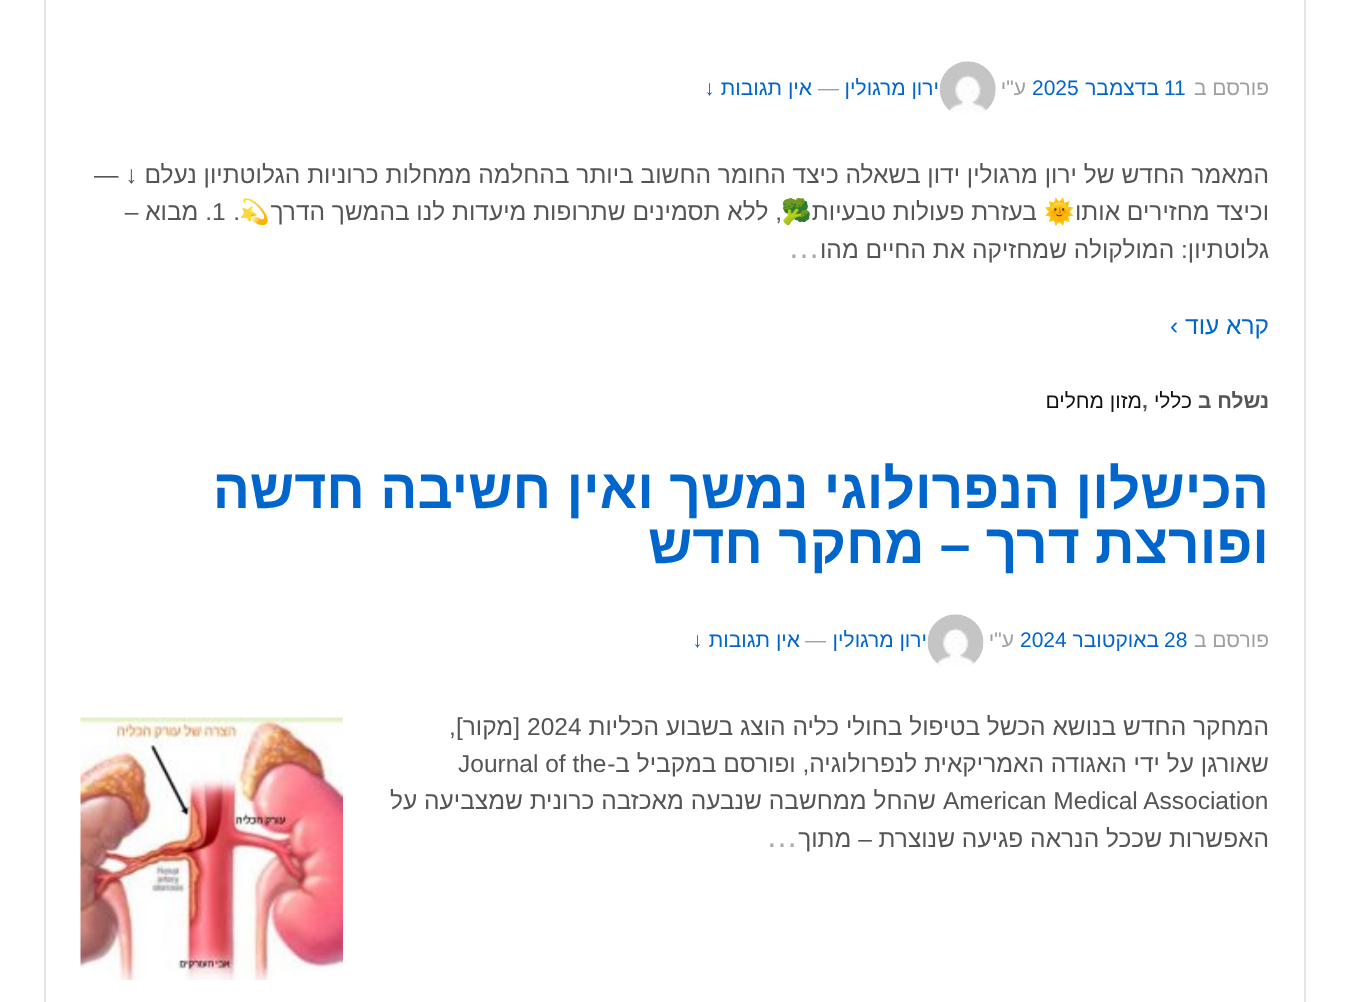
<svg xmlns="http://www.w3.org/2000/svg" width="1349" height="1002">
<rect width="100%" height="100%" fill="#fff"/>
<rect x="45" y="-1" width="1260" height="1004" fill="none" stroke="#e5e5e5" stroke-width="2"/>
<text x="1269" y="95" style="font-family:Liberation Sans;font-size:21px;direction:rtl;fill:#9f9f9f">פורסם ב</text>
<text x="1164" y="95" style="font-family:Liberation Sans;font-size:21px;fill:#06c">11</text>
<text x="1159" y="95" style="font-family:Liberation Sans;font-size:21px;direction:rtl;fill:#06c">בדצמבר</text>
<text x="1032" y="95" style="font-family:Liberation Sans;font-size:21px;fill:#06c">2025</text>
<text x="1026" y="95" style="font-family:Liberation Sans;font-size:21px;direction:rtl;fill:#9f9f9f">ע"י</text>
<image x="939" y="61" width="57" height="52" href="media/1.png"/>
<text x="939" y="95" style="font-family:Liberation Sans;font-size:21px;direction:rtl;fill:#06c">ירון מרגולין</text>
<text x="818" y="95" style="font-family:Liberation Sans;font-size:21px;fill:#9f9f9f">—</text>
<text x="812" y="95" style="font-family:Liberation Sans;font-size:21px;direction:rtl;fill:#06c">אין תגובות ↓</text>
<text x="1269" y="183" style="font-family:Liberation Sans;font-size:24.5px;direction:rtl;fill:#555">המאמר החדש של ירון מרגולין ידון בשאלה כיצד החומר החשוב ביותר בהחלמה ממחלות כרוניות הגלוטתיון נעלם ↓ —</text>
<text x="1269" y="220" style="font-family:Liberation Sans;font-size:24.5px;direction:rtl;fill:#555">וכיצד מחזירים אותו</text>
<text x="1075" y="220" style="font-family:Noto Color Emoji;font-size:24.5px;direction:rtl;fill:#555">🌞</text>
<text x="1037" y="220" style="font-family:Liberation Sans;font-size:24.5px;direction:rtl;fill:#555">בעזרת פעולות טבעיות</text>
<text x="812" y="220" style="font-family:Noto Color Emoji;font-size:24.5px;direction:rtl;fill:#555">🥦</text>
<text x="782" y="220" style="font-family:Liberation Sans;font-size:24.5px;direction:rtl;fill:#555">, ללא תסמינים שתרופות מיעדות לנו בהמשך הדרך</text>
<text x="270" y="220" style="font-family:Noto Color Emoji;font-size:24.5px;direction:rtl;fill:#555">💫</text>
<text x="240" y="220" style="font-family:Liberation Sans;font-size:24.5px;direction:rtl;fill:#555">.</text>
<text x="212" y="220" style="font-family:Liberation Sans;font-size:24.5px;fill:#555">1</text>
<text x="212" y="220" style="font-family:Liberation Sans;font-size:24.5px;direction:rtl;fill:#555">. מבוא –</text>
<text x="1269" y="258" style="font-family:Liberation Sans;font-size:24.5px;direction:rtl;fill:#555">גלוטתיון: המולקולה שמחזיקה את החיים מהו</text>
<text x="788" y="258" style="font-family:Liberation Sans;font-size:32px;fill:#aaa">…</text>
<text x="1269" y="334" style="font-family:Liberation Sans;font-size:24.5px;direction:rtl;fill:#06c">קרא עוד ›</text>
<text x="1269" y="408" style="font-family:Liberation Sans;font-size:21px;font-weight:bold;direction:rtl;fill:#555">נשלח ב</text>
<text x="1192" y="408" style="font-family:Liberation Sans;font-size:21px;direction:rtl;fill:#111">כללי</text>
<text x="1142" y="408" style="font-family:Liberation Sans;font-size:21px;font-weight:bold;fill:#555">,</text>
<text x="1142" y="408" style="font-family:Liberation Sans;font-size:21px;direction:rtl;fill:#111">מזון מחלים</text>
<text x="1269" y="508" style="font-family:Liberation Sans;font-size:55.1px;font-weight:bold;direction:rtl;fill:#06c">הכישלון הנפרולוגי נמשך ואין חשיבה חדשה</text>
<text x="1269" y="563" style="font-family:Liberation Sans;font-size:55.1px;font-weight:bold;direction:rtl;fill:#06c">ופורצת דרך – מחקר חדש</text>
<text x="1269" y="647" style="font-family:Liberation Sans;font-size:21px;direction:rtl;fill:#9f9f9f">פורסם ב</text>
<text x="1164" y="647" style="font-family:Liberation Sans;font-size:21px;fill:#06c">28</text>
<text x="1159" y="647" style="font-family:Liberation Sans;font-size:21px;direction:rtl;fill:#06c">באוקטובר</text>
<text x="1020" y="647" style="font-family:Liberation Sans;font-size:21px;fill:#06c">2024</text>
<text x="1014" y="647" style="font-family:Liberation Sans;font-size:21px;direction:rtl;fill:#9f9f9f">ע"י</text>
<image x="927" y="614" width="57" height="52" href="media/2.png"/>
<text x="927" y="647" style="font-family:Liberation Sans;font-size:21px;direction:rtl;fill:#06c">ירון מרגולין</text>
<text x="805" y="647" style="font-family:Liberation Sans;font-size:21px;fill:#9f9f9f">—</text>
<text x="800" y="647" style="font-family:Liberation Sans;font-size:21px;direction:rtl;fill:#06c">אין תגובות ↓</text>
<text x="1269" y="735" style="font-family:Liberation Sans;font-size:24.5px;direction:rtl;fill:#555">המחקר החדש בנושא הכשל בטיפול בחולי כליה הוצג בשבוע הכליות</text>
<text x="527" y="735" style="font-family:Liberation Sans;font-size:24.5px;fill:#555">2024</text>
<text x="520" y="735" style="font-family:Liberation Sans;font-size:24.5px;direction:rtl;fill:#555">[מקור],</text>
<text x="1269" y="772" style="font-family:Liberation Sans;font-size:24.5px;direction:rtl;fill:#555">שאורגן על ידי האגודה האמריקאית לנפרולוגיה, ופורסם במקביל ב-</text>
<text x="458" y="772" style="font-family:Liberation Sans;font-size:24.5px;fill:#555">Journal of the</text>
<text x="943" y="809" style="font-family:Liberation Sans;font-size:24.5px;fill:#555">American Medical Association</text>
<text x="936" y="809" style="font-family:Liberation Sans;font-size:24.5px;direction:rtl;fill:#555">שהחל ממחשבה שנבעה מאכזבה כרונית שמצביעה על</text>
<text x="1269" y="847" style="font-family:Liberation Sans;font-size:24.5px;direction:rtl;fill:#555">האפשרות שככל הנראה פגיעה שנוצרת – מתוך</text>
<text x="766" y="847" style="font-family:Liberation Sans;font-size:32px;fill:#aaa">…</text>
<image x="80" y="717" width="263" height="263" href="media/3.png"/>
</svg>
